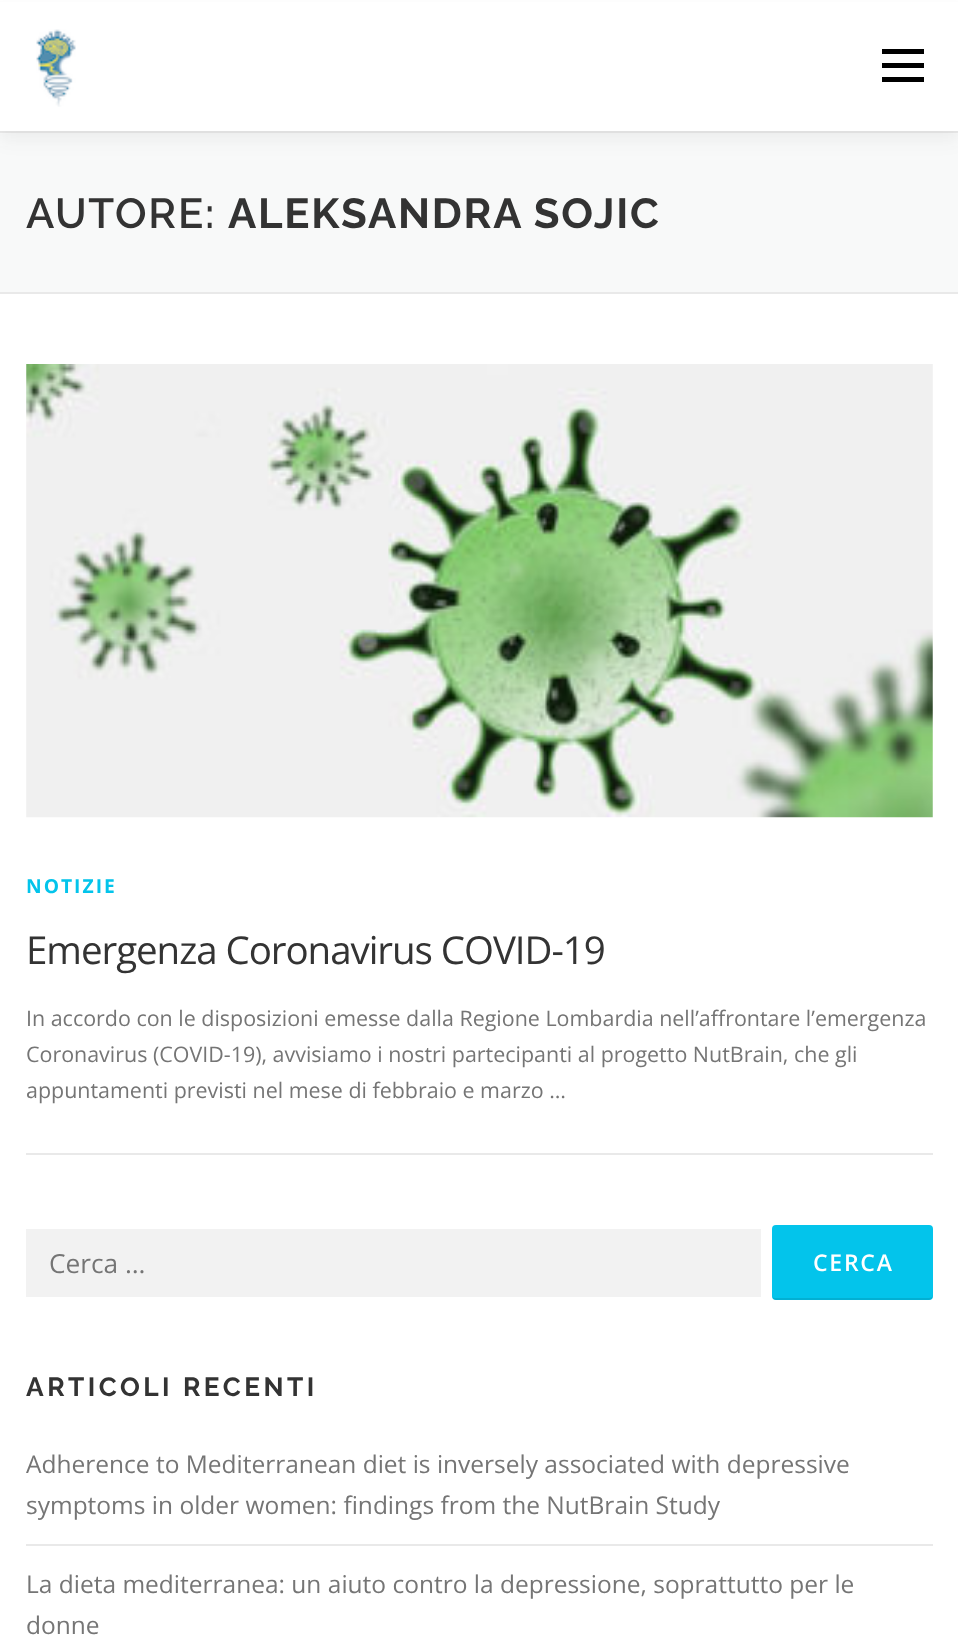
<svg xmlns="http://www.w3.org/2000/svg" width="958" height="1644">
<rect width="100%" height="100%" fill="#fff"/>
<rect y="133" width="958" height="159" fill="#f8f9f9"/>
<rect y="131" width="958" height="2" fill="#e9e9e9"/>
<rect y="9" width="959" height="131" fill="#3232320f" filter="blur(9px)"/>
<rect y="2" width="958" height="129" fill="#fff"/>
<image x="36" y="29" width="40" height="78" href="media/1.png"/>
<rect x="882" y="63" width="42" height="5" fill="#000"/>
<rect x="882" y="49" width="42" height="5" fill="#000"/>
<rect x="882" y="77" width="42" height="5" fill="#000"/>
<rect y="292" width="958" height="2" fill="#e9e9e9"/>
<text x="26" y="228" style="font-family:Raleway;font-size:42px;font-weight:600;letter-spacing:1.75px;fill:#333">AUTORE:</text>
<text x="228" y="228" style="font-family:Raleway;font-size:42px;font-weight:bold;letter-spacing:1.75px;fill:#333">ALEKSANDRA SOJIC</text>
<rect x="26" y="1153" width="907" height="2" fill="#e9e9e9"/>
<image x="26" y="364" width="907" height="454" href="media/2.png"/>
<text x="26" y="893" style="font-family:Open Sans;font-size:19.25px;font-weight:bold;letter-spacing:2px;fill:#03c4eb">NOTIZIE</text>
<text x="26" y="964" style="font-family:Open Sans;font-size:38.5px;letter-spacing:-1.05px;fill:#333">Emergenza Coronavirus COVID-19</text>
<text x="26" y="1026" style="font-family:Open Sans;font-size:21.45px;fill:#757575">In accordo con le disposizioni emesse dalla Regione Lombardia nell’affrontare l’emergenza</text>
<text x="26" y="1062" style="font-family:Open Sans;font-size:21.45px;fill:#757575">Coronavirus (COVID-19), avvisiamo i nostri partecipanti al progetto NutBrain, che gli</text>
<text x="26" y="1098" style="font-family:Open Sans;font-size:21.45px;fill:#757575">appuntamenti previsti nel mese di febbraio e marzo …</text>
<rect x="26" y="1229" width="735" height="68" fill="#f2f2f2"/>
<text x="49" y="1273" style="font-family:Open Sans;font-size:26.25px;fill:#757575">Cerca …</text>
<rect x="772" y="1225" width="161" height="75" rx="4" fill="#03c4eb"/>
<path d="M772 1295c0 2 1 4 3 5h155c2-1 3-3 3-5c0 2-2 3-4 3h-154c-2 0-3-1-3-3z" fill="#0000001a"/>
<text x="813" y="1271" style="font-family:Open Sans;font-size:23px;font-weight:600;letter-spacing:1.75px;fill:#fff">CERCA</text>
<text x="26" y="1396" style="font-family:Raleway;font-size:26.25px;font-weight:bold;letter-spacing:3.5px;fill:#333">ARTICOLI RECENTI</text>
<rect x="26" y="1544" width="907" height="2" fill="#e9e9e9"/>
<text x="26" y="1473" style="font-family:Open Sans;font-size:24.5px;fill:#757575">Adherence to Mediterranean diet is inversely associated with depressive</text>
<text x="26" y="1514" style="font-family:Open Sans;font-size:24.5px;fill:#757575">symptoms in older women: findings from the NutBrain Study</text>
<text x="26" y="1593" style="font-family:Open Sans;font-size:24.5px;fill:#757575">La dieta mediterranea: un aiuto contro la depressione, soprattutto per le</text>
<text x="26" y="1634" style="font-family:Open Sans;font-size:24.5px;fill:#757575">donne</text>
</svg>
